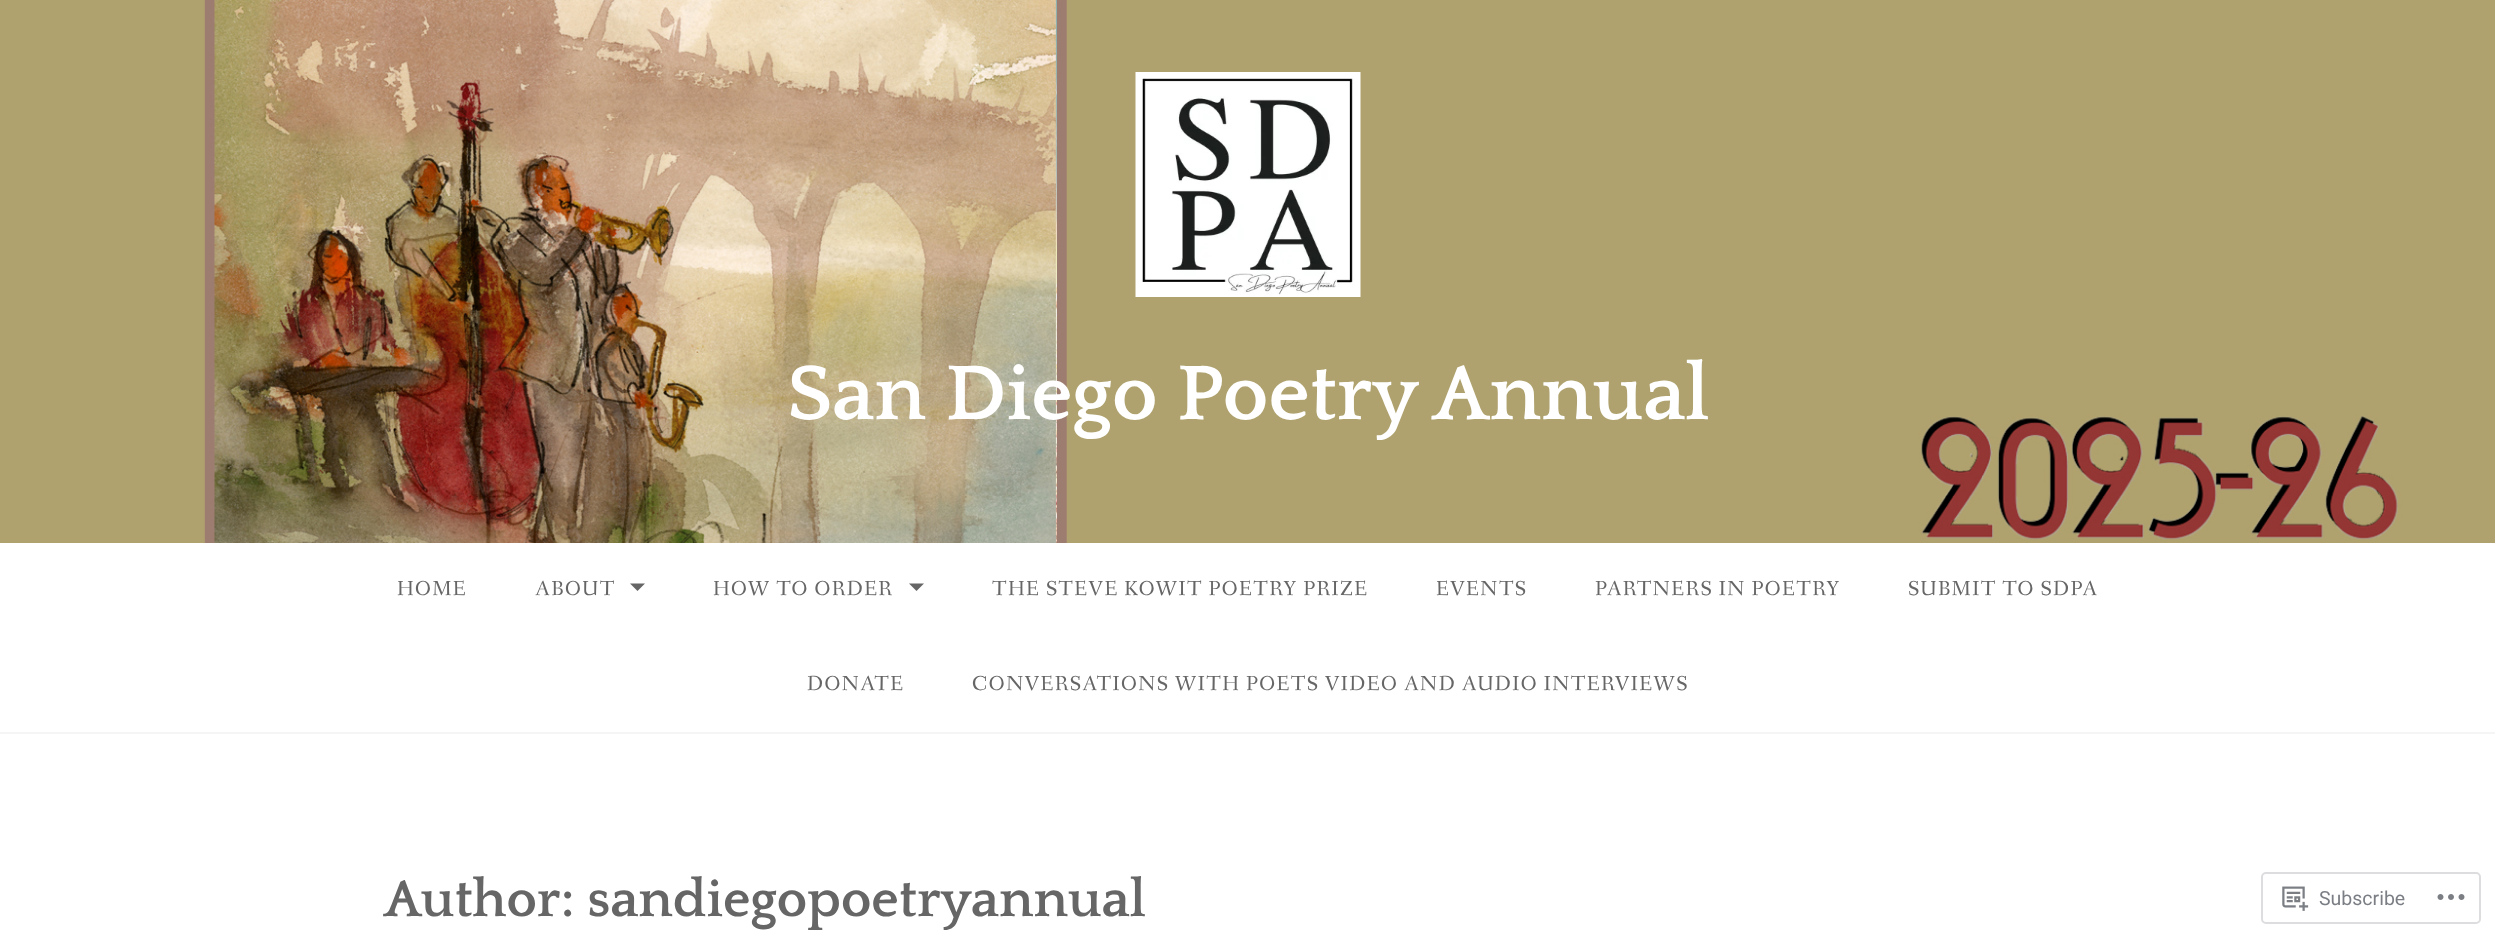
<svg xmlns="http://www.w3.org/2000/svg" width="2495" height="938">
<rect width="100%" height="100%" fill="#fff"/>
<image x="0" y="0" width="2495" height="543" href="media/1.png"/>
<image x="1135" y="72" width="226" height="225" href="media/2.png"/>
<text x="787" y="419" style="font-family:Quattrocento;font-size:81px;font-weight:bold;fill:#fff">San Diego Poetry Annual</text>
<rect y="732" width="2495" height="2" fill="#f5f5f5"/>
<text x="397" y="595" style="font-family:Fanwood Text;font-size:21px;letter-spacing:1.5px;fill:#666">HOME</text>
<text x="535" y="595" style="font-family:Fanwood Text;font-size:21px;letter-spacing:1.5px;fill:#666">ABOUT</text>
<path d="M630 583.5h15l-7.5 7.5z" fill="#666"/>
<text x="713" y="595" style="font-family:Fanwood Text;font-size:21px;letter-spacing:1.5px;fill:#666">HOW TO ORDER</text>
<path d="M909 583.5h15l-7.5 7.5z" fill="#666"/>
<text x="992" y="595" style="font-family:Fanwood Text;font-size:21px;letter-spacing:1.5px;fill:#666">THE STEVE KOWIT POETRY PRIZE</text>
<text x="1436" y="595" style="font-family:Fanwood Text;font-size:21px;letter-spacing:1.5px;fill:#666">EVENTS</text>
<text x="1595" y="595" style="font-family:Fanwood Text;font-size:21px;letter-spacing:1.5px;fill:#666">PARTNERS IN POETRY</text>
<text x="1908" y="595" style="font-family:Fanwood Text;font-size:21px;letter-spacing:1.5px;fill:#666">SUBMIT TO SDPA</text>
<text x="807" y="690" style="font-family:Fanwood Text;font-size:21px;letter-spacing:1.5px;fill:#666">DONATE</text>
<text x="972" y="690" style="font-family:Fanwood Text;font-size:21px;letter-spacing:1.5px;fill:#666">CONVERSATIONS WITH POETS VIDEO AND AUDIO INTERVIEWS</text>
<text x="384" y="916" style="font-family:Quattrocento;font-size:54px;font-weight:bold;fill:#666">Author: sandiegopoetryannual</text>
<rect x="2262" y="873" width="218" height="50" rx="4" fill="none" stroke="#dddddf" stroke-width="2"/>
<image x="2282" y="886" width="27" height="25" href="media/3.png"/>
<text x="2319" y="905" style="font-family:Roboto;font-size:19.5px;fill:#7b7f85">Subscribe</text>
<image x="2437" y="894" width="28" height="6" href="media/4.png"/>
</svg>
